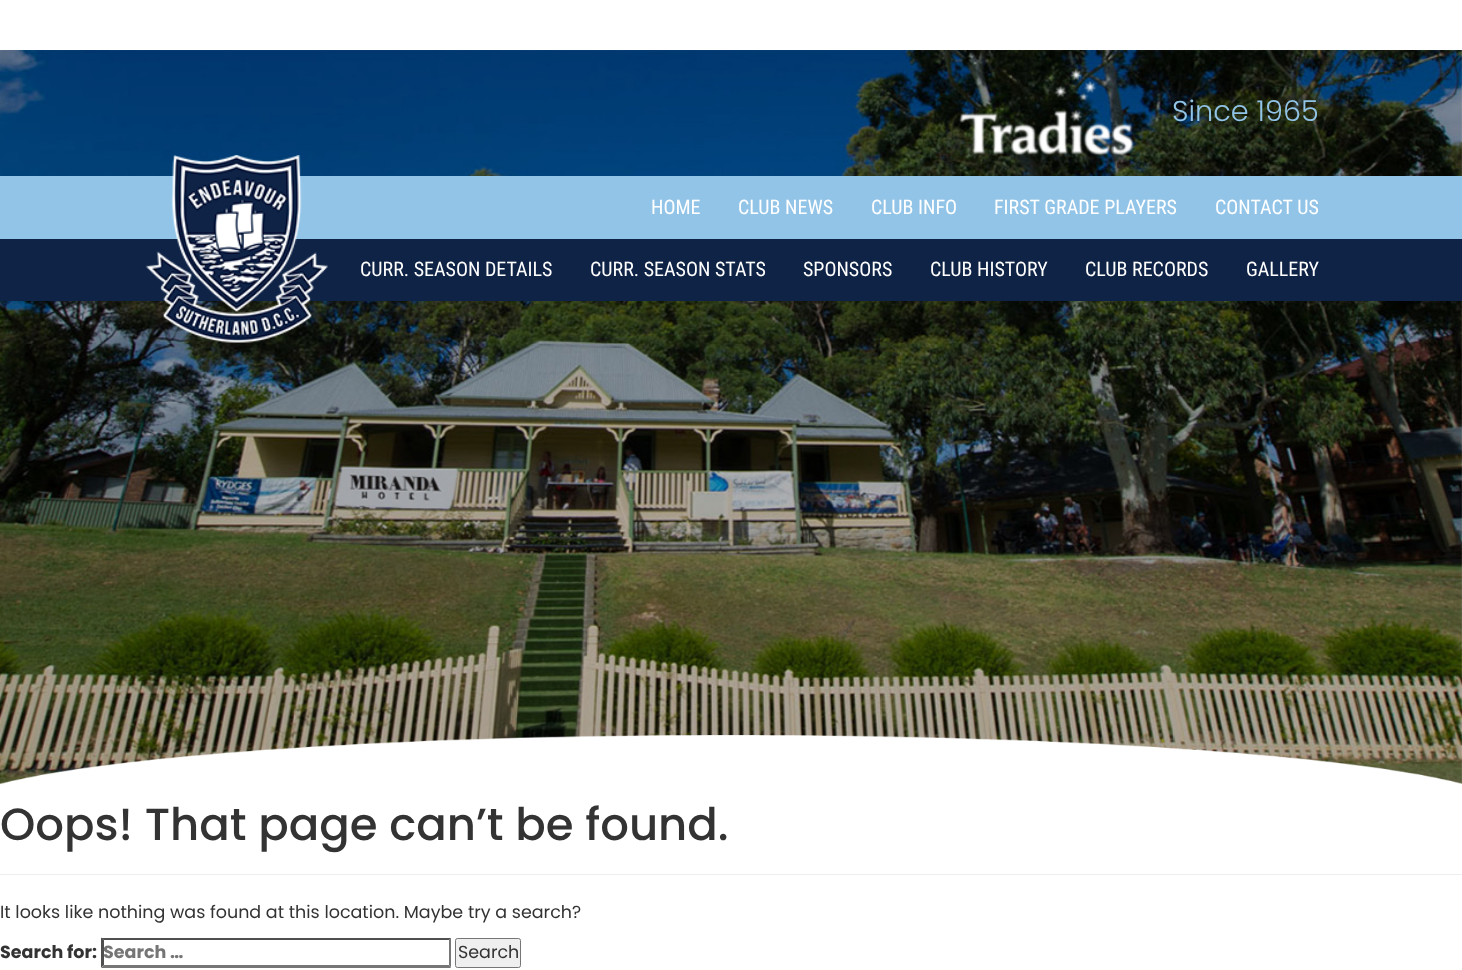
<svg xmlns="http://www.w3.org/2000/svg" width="1462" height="970">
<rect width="100%" height="100%" fill="#fff"/>
<image x="0" y="50" width="1462" height="735" href="media/1.png"/>
<image x="0" y="735" width="1462" height="65" href="media/2.png"/>
<image x="959" y="68" width="175" height="88" href="media/3.png"/>
<text x="1172" y="121" style="font-family:Poppins;font-size:28.75px;font-weight:300;fill:#92c4e8">Since 1965</text>
<rect y="176" width="1462" height="63" fill="#92c4e8"/>
<rect y="239" width="1462" height="62" fill="#0f2346"/>
<image x="146" y="155" width="182" height="188" href="media/4.png"/>
<text x="651" y="214" style="font-family:Roboto Condensed;font-size:20px;fill:#fff">HOME</text>
<text x="738" y="214" style="font-family:Roboto Condensed;font-size:20px;fill:#fff">CLUB NEWS</text>
<text x="871" y="214" style="font-family:Roboto Condensed;font-size:20px;fill:#fff">CLUB INFO</text>
<text x="994" y="214" style="font-family:Roboto Condensed;font-size:20px;fill:#fff">FIRST GRADE PLAYERS</text>
<text x="1215" y="214" style="font-family:Roboto Condensed;font-size:20px;fill:#fff">CONTACT US</text>
<text x="360" y="276" style="font-family:Roboto Condensed;font-size:20px;fill:#fff">CURR. SEASON DETAILS</text>
<text x="590" y="276" style="font-family:Roboto Condensed;font-size:20px;fill:#fff">CURR. SEASON STATS</text>
<text x="803" y="276" style="font-family:Roboto Condensed;font-size:20px;fill:#fff">SPONSORS</text>
<text x="930" y="276" style="font-family:Roboto Condensed;font-size:20px;fill:#fff">CLUB HISTORY</text>
<text x="1085" y="276" style="font-family:Roboto Condensed;font-size:20px;fill:#fff">CLUB RECORDS</text>
<text x="1246" y="276" style="font-family:Roboto Condensed;font-size:20px;fill:#fff">GALLERY</text>
<rect y="874" width="1462" height="1" fill="#eee"/>
<text x="0" y="840" style="font-family:Poppins;font-size:45px;font-weight:500;fill:#333">Oops! That page can’t be found.</text>
<text x="0" y="918" style="font-family:Poppins;font-size:17.5px;fill:#333">It looks like nothing was found at this location. Maybe try a search?</text>
<text x="0" y="958" style="font-family:Poppins;font-size:17.5px;font-weight:bold;fill:#333">Search for:</text>
<path d="M101 938h350l-2 2h-345z" fill="#4f4f4f"/>
<path d="M451 937.5v30l-2-2.5v-25z" fill="#767676"/>
<path d="M451 968h-350l3-3h345z" fill="#767676"/>
<path d="M101 967.5v-30l3 2.5v25z" fill="#4f4f4f"/>
<text x="103" y="958" style="font-family:Poppins;font-size:17.5px;font-weight:bold;fill:#757575">Search …</text>
<rect x="455.5" y="938.5" width="65" height="29" rx="2" fill="#efefef" stroke="#767676"/>
<text x="458" y="958" style="font-family:Poppins;font-size:17.5px;fill:#333">Search</text>
</svg>
